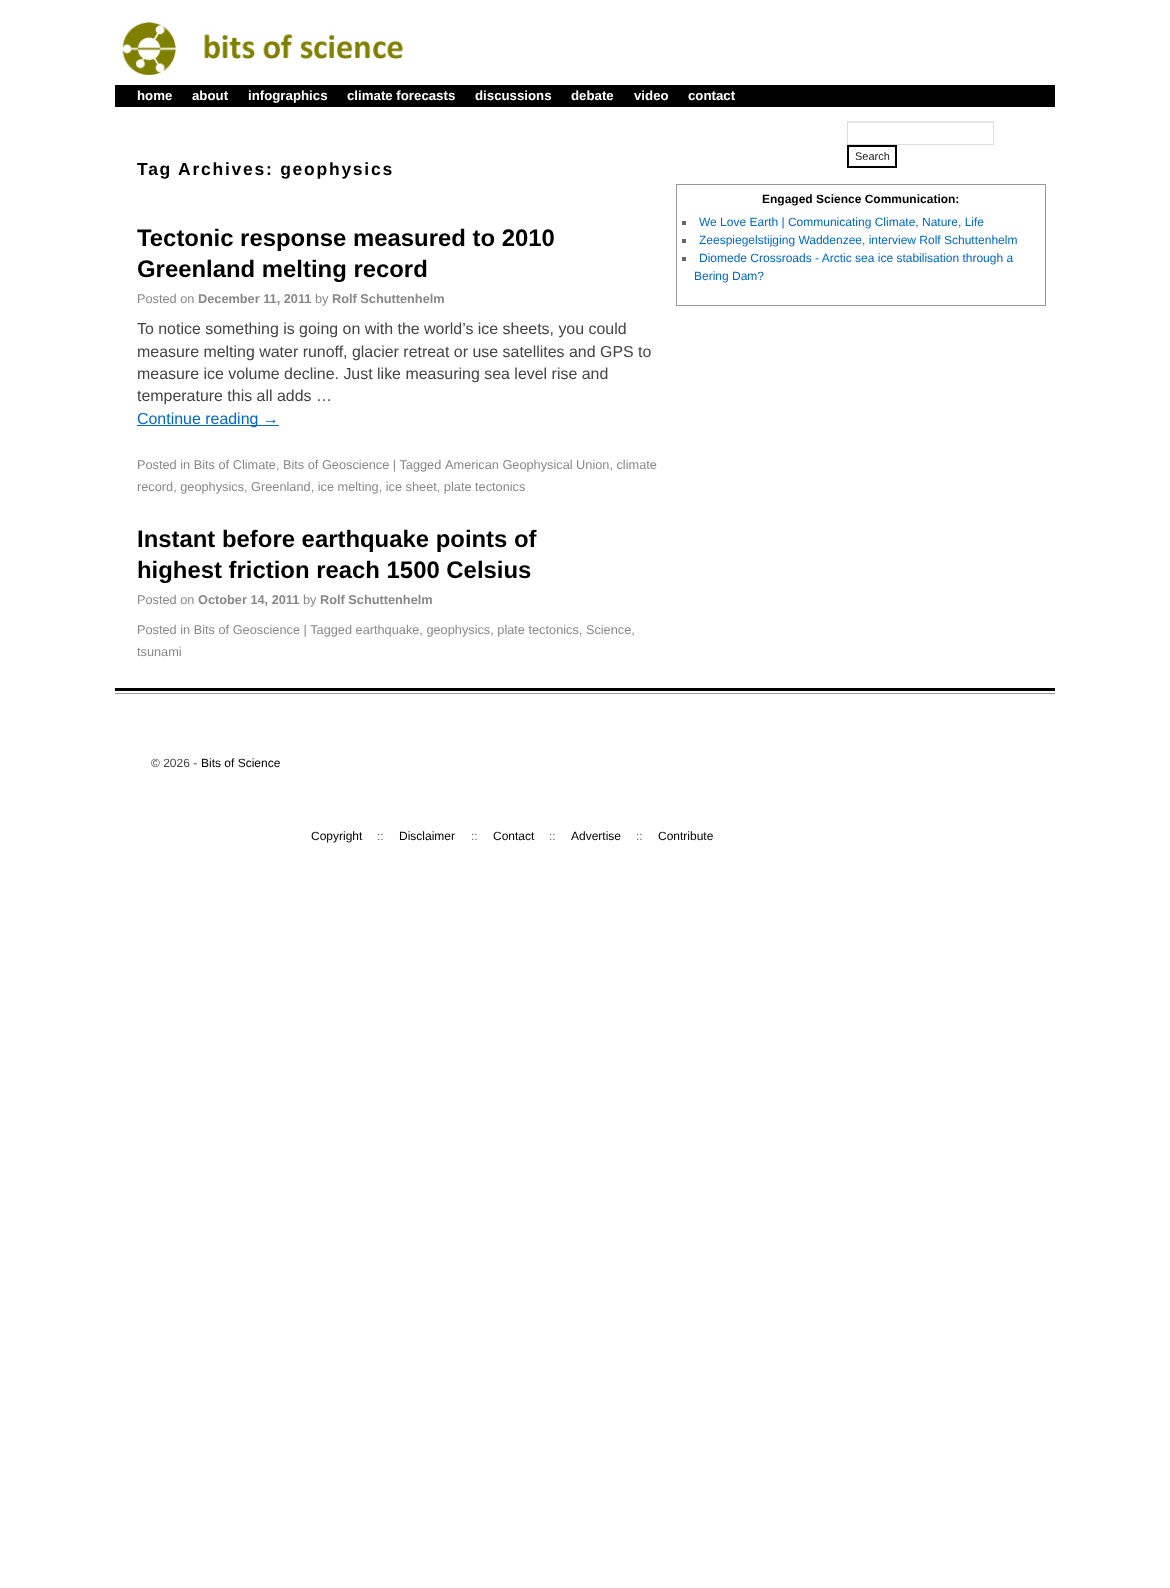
<svg xmlns="http://www.w3.org/2000/svg" width="1170" height="1588">
<rect width="100%" height="100%" fill="#fff"/>
<image x="122" y="22" width="281" height="53" href="media/1.png"/>
<rect x="115" y="85" width="940" height="22" fill="#000"/>
<text x="137" y="100" style="font-family:Liberation Sans;font-size:13.25px;font-weight:bold;fill:#fff">home</text>
<text x="192" y="100" style="font-family:Liberation Sans;font-size:13.25px;font-weight:bold;fill:#fff">about</text>
<text x="248" y="100" style="font-family:Liberation Sans;font-size:13.25px;font-weight:bold;fill:#fff">infographics</text>
<text x="347" y="100" style="font-family:Liberation Sans;font-size:13.25px;font-weight:bold;fill:#fff">climate forecasts</text>
<text x="475" y="100" style="font-family:Liberation Sans;font-size:13.25px;font-weight:bold;fill:#fff">discussions</text>
<text x="571" y="100" style="font-family:Liberation Sans;font-size:13.25px;font-weight:bold;fill:#fff">debate</text>
<text x="634" y="100" style="font-family:Liberation Sans;font-size:13.25px;font-weight:bold;fill:#fff">video</text>
<text x="688" y="100" style="font-family:Liberation Sans;font-size:13.25px;font-weight:bold;fill:#fff">contact</text>
<text x="137" y="175" style="font-family:Liberation Sans;font-size:17.5px;font-weight:bold;letter-spacing:1.75px;fill:#000">Tag Archives: geophysics</text>
<text x="137" y="246" style="font-family:Liberation Sans;font-size:23.9px;font-weight:bold;fill:#000">Tectonic response measured to 2010</text>
<text x="137" y="277" style="font-family:Liberation Sans;font-size:23.9px;font-weight:bold;fill:#000">Greenland melting record</text>
<text x="137" y="303" style="font-family:Liberation Sans;font-size:12.75px;fill:#888">Posted on</text>
<text x="198" y="303" style="font-family:Liberation Sans;font-size:12.75px;font-weight:bold;fill:#888">December 11, 2011</text>
<text x="315" y="303" style="font-family:Liberation Sans;font-size:12.75px;fill:#888">by</text>
<text x="332" y="303" style="font-family:Liberation Sans;font-size:12.75px;font-weight:bold;fill:#888">Rolf Schuttenhelm</text>
<text x="137" y="334" style="font-family:Liberation Sans;font-size:15.95px;fill:#444">To notice something is going on with the world’s ice sheets, you could</text>
<text x="137" y="357" style="font-family:Liberation Sans;font-size:15.95px;fill:#444">measure melting water runoff, glacier retreat or use satellites and GPS to</text>
<text x="137" y="379" style="font-family:Liberation Sans;font-size:15.95px;fill:#444">measure ice volume decline. Just like measuring sea level rise and</text>
<text x="137" y="401" style="font-family:Liberation Sans;font-size:15.95px;fill:#444">temperature this all adds …</text>
<rect x="137" y="425" width="142" height="1" fill="#06c"/>
<text x="137" y="424" style="font-family:Liberation Sans;font-size:15.95px;fill:#06c">Continue reading →</text>
<text x="137" y="469" style="font-family:Liberation Sans;font-size:12.75px;fill:#888">Posted in Bits of Climate, Bits of Geoscience | Tagged</text>
<text x="445" y="469" style="font-family:Liberation Sans;font-size:12.75px;fill:#888">American Geophysical Union, climate</text>
<text x="137" y="491" style="font-family:Liberation Sans;font-size:12.75px;fill:#888">record, geophysics, Greenland, ice melting, ice sheet, plate tectonics</text>
<text x="137" y="547" style="font-family:Liberation Sans;font-size:23.9px;font-weight:bold;fill:#000">Instant before earthquake points of</text>
<text x="137" y="578" style="font-family:Liberation Sans;font-size:23.9px;font-weight:bold;fill:#000">highest friction reach 1500 Celsius</text>
<text x="137" y="604" style="font-family:Liberation Sans;font-size:12.75px;fill:#888">Posted on</text>
<text x="198" y="604" style="font-family:Liberation Sans;font-size:12.75px;font-weight:bold;fill:#888">October 14, 2011</text>
<text x="303" y="604" style="font-family:Liberation Sans;font-size:12.75px;fill:#888">by</text>
<text x="320" y="604" style="font-family:Liberation Sans;font-size:12.75px;font-weight:bold;fill:#888">Rolf Schuttenhelm</text>
<text x="137" y="634" style="font-family:Liberation Sans;font-size:12.75px;fill:#888">Posted in Bits of Geoscience | Tagged earthquake, geophysics, plate tectonics, Science,</text>
<text x="137" y="656" style="font-family:Liberation Sans;font-size:12.75px;fill:#888">tsunami</text>
<rect x="848" y="122" width="145" height="1" fill="#e6e6e6"/>
<rect x="847.5" y="121.5" width="146" height="23" fill="none" stroke="#ddd"/>
<rect x="848" y="146" width="48" height="21" fill="none" stroke="#000" stroke-width="2"/>
<text x="855" y="160" style="font-family:Liberation Sans;font-size:11px;fill:#222">Search</text>
<rect x="676.5" y="184.5" width="369" height="121" fill="none" stroke="#999"/>
<text x="762" y="203" style="font-family:Liberation Sans;font-size:12px;font-weight:bold;fill:#000">Engaged Science Communication:</text>
<rect x="682" y="221" width="4" height="4" fill="#666"/>
<text x="699" y="226" style="font-family:Liberation Sans;font-size:12px;fill:#06c">We Love Earth | Communicating Climate, Nature, Life</text>
<rect x="682" y="239" width="4" height="4" fill="#666"/>
<text x="699" y="244" style="font-family:Liberation Sans;font-size:12px;fill:#06c">Zeespiegelstijging Waddenzee, interview Rolf Schuttenhelm</text>
<rect x="682" y="257" width="4" height="4" fill="#666"/>
<text x="699" y="262" style="font-family:Liberation Sans;font-size:12px;fill:#06c">Diomede Crossroads - Arctic sea ice stabilisation through a</text>
<text x="694" y="280" style="font-family:Liberation Sans;font-size:12px;fill:#06c">Bering Dam?</text>
<rect x="115" y="688" width="940" height="3" fill="#000"/>
<text x="151" y="767" style="font-family:Liberation Sans;font-size:12px;fill:#444">© 2026 -</text>
<text x="201" y="767" style="font-family:Liberation Sans;font-size:12px;fill:#000">Bits of Science</text>
<rect x="115" y="693" width="940" height="1" fill="#999"/>
<text x="311" y="840" style="font-family:Liberation Sans;font-size:12px;fill:#000">Copyright</text>
<text x="377" y="840" style="font-family:Liberation Sans;font-size:12px;fill:#666">::</text>
<text x="399" y="840" style="font-family:Liberation Sans;font-size:12px;fill:#000">Disclaimer</text>
<text x="471" y="840" style="font-family:Liberation Sans;font-size:12px;fill:#666">::</text>
<text x="493" y="840" style="font-family:Liberation Sans;font-size:12px;fill:#000">Contact</text>
<text x="549" y="840" style="font-family:Liberation Sans;font-size:12px;fill:#666">::</text>
<text x="571" y="840" style="font-family:Liberation Sans;font-size:12px;fill:#000">Advertise</text>
<text x="636" y="840" style="font-family:Liberation Sans;font-size:12px;fill:#666">::</text>
<text x="658" y="840" style="font-family:Liberation Sans;font-size:12px;fill:#000">Contribute</text>
</svg>
